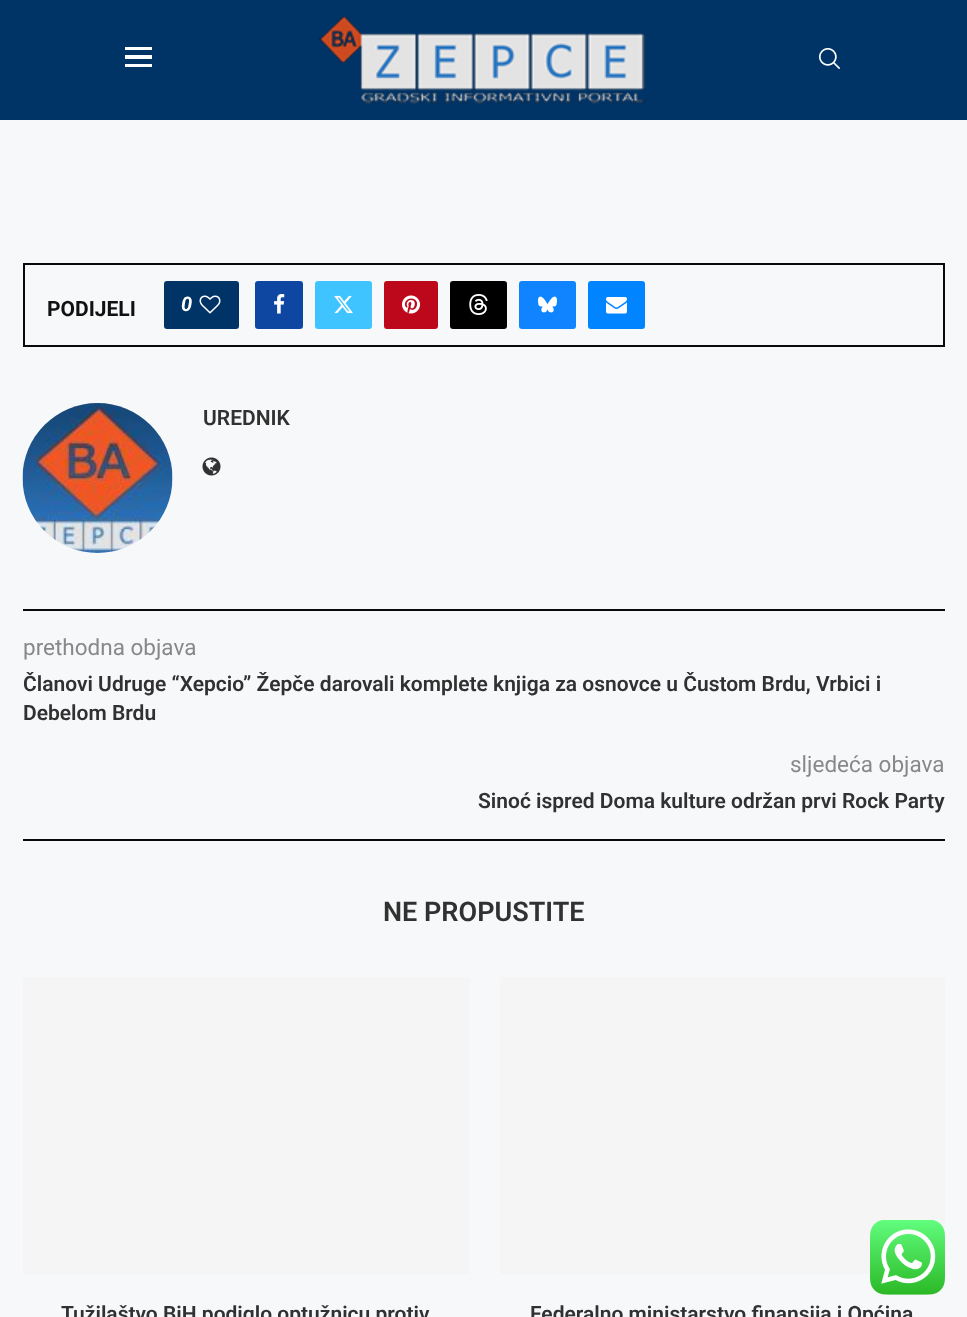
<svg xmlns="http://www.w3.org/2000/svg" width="967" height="1317">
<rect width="100%" height="100%" fill="#f6f8fa"/>
<rect width="967" height="120" fill="#036"/>
<rect x="125" y="47" width="27" height="3" fill="#fff"/>
<rect x="125" y="55" width="27" height="4" fill="#fff"/>
<rect x="125" y="64" width="27" height="3" fill="#fff"/>
<image x="318" y="15" width="328" height="89" href="media/1.png"/>
<image x="819" y="48" width="21" height="21" href="media/2.png"/>
<rect x="24" y="264" width="920" height="82" fill="none" stroke="#0a0a0a" stroke-width="2"/>
<text x="47" y="316" style="font-family:Roboto;font-size:21px;font-weight:bold;fill:#111">PODIJELI</text>
<rect x="164" y="281" width="75" height="48" rx="3" fill="#036"/>
<text x="181" y="311" style="font-family:Roboto;font-size:20px;font-weight:bold;font-style:italic;fill:#fff">0</text>
<image x="199" y="295" width="22" height="19" href="media/3.png"/>
<rect x="255" y="281" width="48" height="48" rx="3" fill="#0d47a1"/>
<image x="274" y="294" width="11" height="20" href="media/4.png"/>
<rect x="315" y="281" width="57" height="48" rx="3" fill="#40c4ff"/>
<image x="334" y="295" width="19" height="19" href="media/5.png"/>
<rect x="384" y="281" width="54" height="48" rx="3" fill="#bd081c"/>
<image x="402" y="295" width="18" height="19" href="media/6.png"/>
<rect x="450" y="281" width="57" height="48" rx="3" fill="#000"/>
<image x="469" y="294" width="19" height="21" href="media/7.png"/>
<rect x="519" y="281" width="57" height="48" rx="3" fill="#1083fe"/>
<image x="538" y="296" width="19" height="17" href="media/8.png"/>
<rect x="588" y="281" width="57" height="48" rx="3" fill="#0084ff"/>
<image x="606" y="297" width="21" height="17" href="media/9.png"/>
<image x="22" y="403" width="151" height="150" href="media/10.png"/>
<text x="203" y="425" style="font-family:Roboto;font-size:21px;font-weight:600;fill:#313131">UREDNIK</text>
<image x="202" y="457" width="19" height="19" href="media/11.png"/>
<rect x="23" y="609" width="922" height="2" fill="#0a0a0a"/>
<text x="23" y="655" style="font-family:Roboto;font-size:22.5px;fill:#888">prethodna objava</text>
<text x="23" y="691" style="font-family:Roboto;font-size:21px;font-weight:600;fill:#313131">Članovi Udruge “Xepcio” Žepče darovali komplete knjiga za osnovce u Čustom Brdu, Vrbici i</text>
<text x="23" y="720" style="font-family:Roboto;font-size:21px;font-weight:600;fill:#313131">Debelom Brdu</text>
<text x="790" y="772" style="font-family:Roboto;font-size:22.5px;fill:#888">sljedeća objava</text>
<text x="478" y="808" style="font-family:Roboto;font-size:21px;font-weight:600;fill:#313131">Sinoć ispred Doma kulture održan prvi Rock Party</text>
<rect x="23" y="839" width="922" height="2" fill="#0a0a0a"/>
<text x="383" y="921" style="font-family:Roboto;font-size:27px;font-weight:600;fill:#313131">NE PROPUSTITE</text>
<rect x="23" y="977" width="447" height="297" fill="#f5f5f5"/>
<text x="61" y="1321" style="font-family:Roboto;font-size:21px;font-weight:600;fill:#313131">Tužilaštvo BiH podiglo optužnicu protiv</text>
<rect x="500" y="977" width="445" height="297" fill="#f5f5f5"/>
<text x="530" y="1321" style="font-family:Roboto;font-size:21px;font-weight:600;fill:#313131">Federalno ministarstvo finansija i Općina</text>
<image x="870" y="1220" width="75" height="75" href="media/12.png"/>
</svg>
